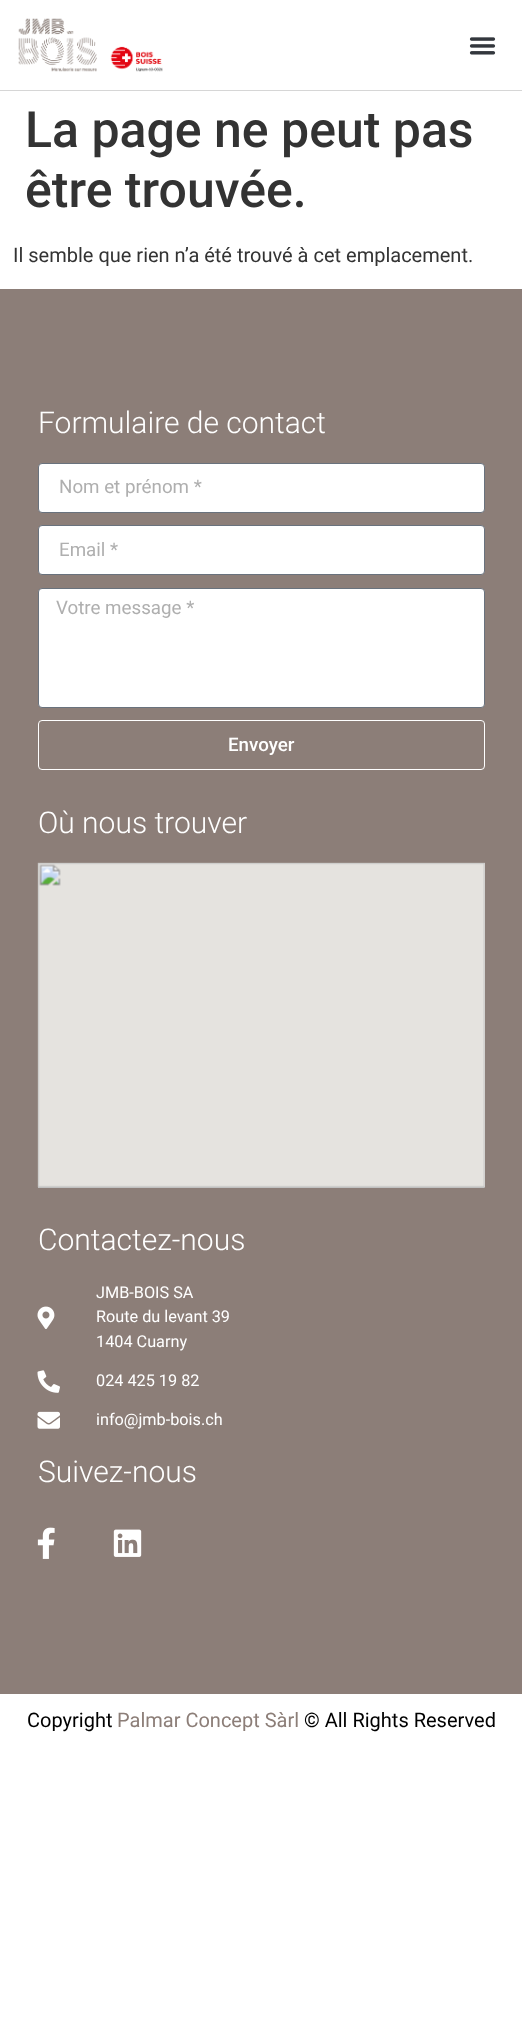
<svg xmlns="http://www.w3.org/2000/svg" width="522" height="2026">
<rect width="100%" height="100%" fill="#fff"/>
<rect y="90" width="522" height="1" fill="#d6d6d6"/>
<image x="18" y="18" width="145" height="54" href="media/1.png"/>
<image x="469" y="37" width="27" height="18" href="media/2.png"/>
<text x="25" y="147" style="font-family:Roboto;font-size:50px;font-weight:500;fill:#333">La page ne peut pas</text>
<text x="25" y="207" style="font-family:Roboto;font-size:50px;font-weight:500;fill:#333">être trouvée.</text>
<text x="13" y="262" style="font-family:Roboto;font-size:20px;fill:#333">Il semble que rien n’a été trouvé à cet emplacement.</text>
<rect y="289" width="522" height="1405" fill="#8c7e78"/>
<text x="38" y="433" style="font-family:Roboto;font-size:30px;font-weight:300;fill:#fff">Formulaire de contact</text>
<rect x="38.5" y="463.5" width="446" height="49" rx="3.5" fill="#fff" stroke="#69727d"/>
<text x="59" y="493" style="font-family:Roboto;font-size:18.75px;fill:#afafaf">Nom et prénom *</text>
<rect x="38.5" y="525.5" width="446" height="49" rx="3.5" fill="#fff" stroke="#69727d"/>
<text x="59" y="556" style="font-family:Roboto;font-size:18.75px;fill:#afafaf">Email *</text>
<rect x="38.5" y="588.5" width="446" height="119" rx="3.5" fill="#fff" stroke="#69727d"/>
<text x="56" y="614" style="font-family:Roboto;font-size:18.75px;fill:#afafaf">Votre message *</text>
<rect x="38.5" y="720.5" width="446" height="49" rx="3.5" fill="none" stroke="#fff"/>
<text x="228" y="751" style="font-family:Roboto;font-size:18.75px;font-weight:500;fill:#fff">Envoyer</text>
<text x="38" y="833" style="font-family:Roboto;font-size:30px;font-weight:300;fill:#fff">Où nous trouver</text>
<image x="37" y="862" width="448" height="326" href="media/3.png"/>
<text x="38" y="1250" style="font-family:Roboto;font-size:30px;font-weight:300;fill:#fff">Contactez-nous</text>
<image x="37" y="1306" width="18" height="23" href="media/4.png"/>
<text x="96" y="1298" style="font-family:Roboto;font-size:16.25px;fill:#fff">JMB-BOIS SA</text>
<text x="96" y="1322" style="font-family:Roboto;font-size:16.25px;fill:#fff">Route du levant 39</text>
<text x="96" y="1347" style="font-family:Roboto;font-size:16.25px;fill:#fff">1404 Cuarny</text>
<image x="37" y="1370" width="23" height="23" href="media/5.png"/>
<text x="96" y="1386" style="font-family:Roboto;font-size:16.25px;fill:#fff">024 425 19 82</text>
<image x="37" y="1411" width="23" height="18" href="media/6.png"/>
<text x="96" y="1425" style="font-family:Roboto;font-size:16.25px;fill:#fff">info@jmb-bois.ch</text>
<text x="38" y="1482" style="font-family:Roboto;font-size:30px;font-weight:300;fill:#fff">Suivez-nous</text>
<image x="37" y="1527" width="18" height="32" href="media/7.png"/>
<image x="113" y="1529" width="29" height="28" href="media/8.png"/>
<text x="27" y="1727" style="font-family:Roboto;font-size:20px;fill:#000">Copyright</text>
<text x="117" y="1727" style="font-family:Roboto;font-size:20px;fill:#8c7e78">Palmar Concept Sàrl</text>
<text x="304" y="1727" style="font-family:Roboto;font-size:20px;fill:#000">© All Rights Reserved</text>
</svg>
